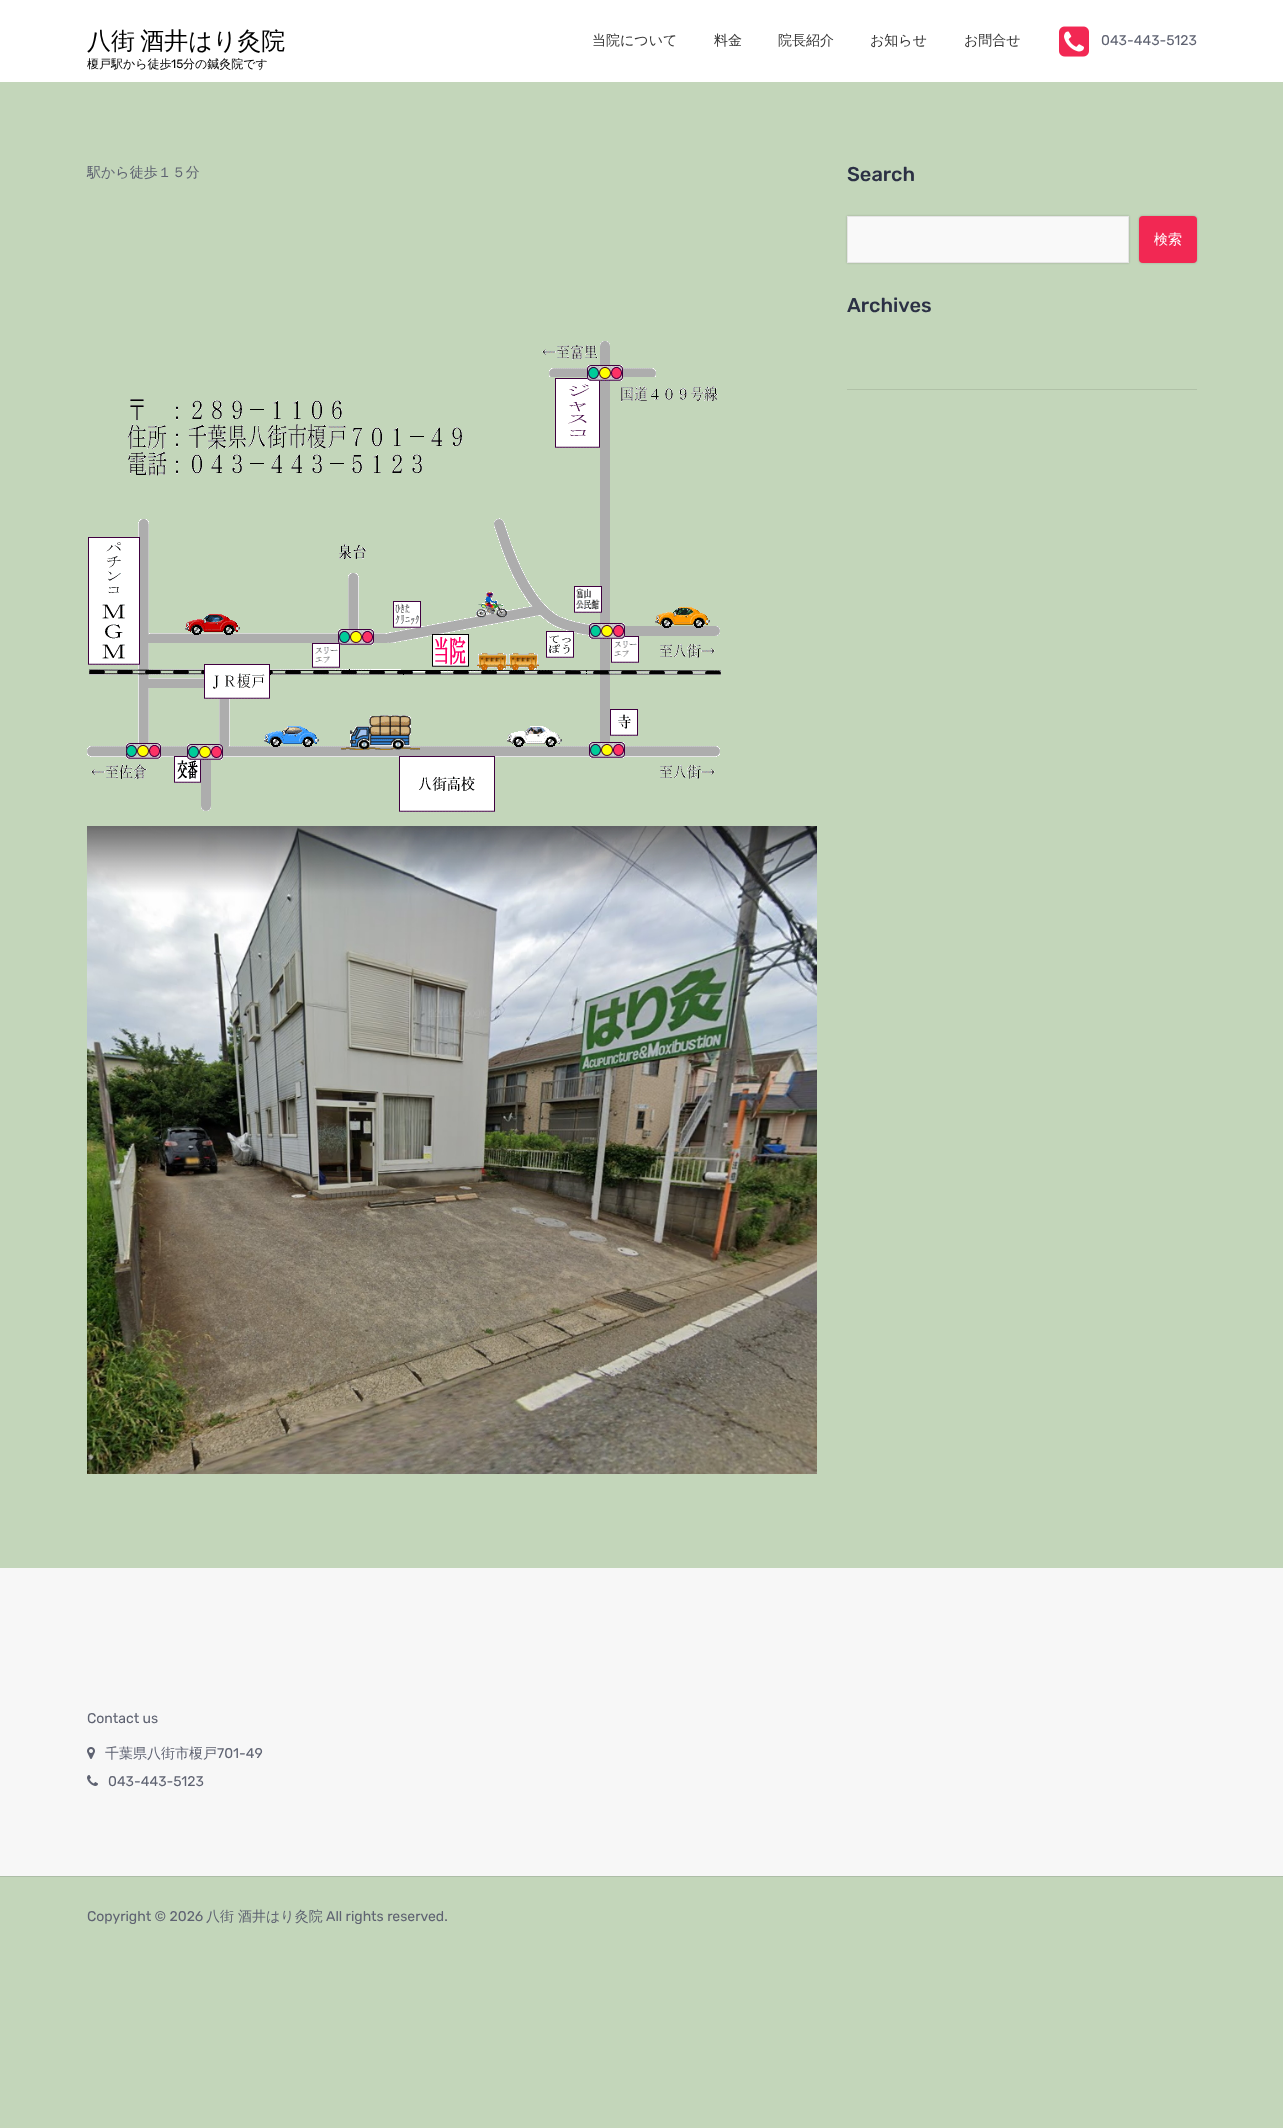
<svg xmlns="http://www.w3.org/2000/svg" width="1283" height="2128">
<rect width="100%" height="100%" fill="#c3d6ba"/>
<rect width="1283" height="82" fill="#fff"/>
<text x="87" y="49" word-spacing="-2" style="font-family:WenQuanYi Zen Hei;font-size:24px;font-weight:500;fill:#000">八街 酒井はり灸院</text>
<text x="87" y="68" style="font-family:WenQuanYi Zen Hei;font-size:12px;font-weight:500;fill:#000">榎戸駅から徒歩</text>
<text x="171" y="68" style="font-family:Rubik;font-size:12px;fill:#000">15</text>
<text x="183" y="68" style="font-family:WenQuanYi Zen Hei;font-size:12px;font-weight:500;fill:#000">分の鍼灸院です</text>
<text x="592" y="45" style="font-family:WenQuanYi Zen Hei;font-size:14px;font-weight:500;fill:#363636">当院について</text>
<text x="714" y="45" style="font-family:WenQuanYi Zen Hei;font-size:14px;font-weight:500;fill:#363636">料金</text>
<text x="778" y="45" style="font-family:WenQuanYi Zen Hei;font-size:14px;font-weight:500;fill:#363636">院長紹介</text>
<text x="870" y="45" style="font-family:WenQuanYi Zen Hei;font-size:14px;font-weight:500;fill:#363636">お知らせ</text>
<text x="964" y="45" style="font-family:WenQuanYi Zen Hei;font-size:14px;font-weight:500;fill:#363636">お問合せ</text>
<image x="1059" y="26" width="30" height="31" href="media/1.png"/>
<text x="1101" y="45" style="font-family:Rubik;font-size:14px;fill:#5e6271">043-443-5123</text>
<text x="87" y="177" style="font-family:WenQuanYi Zen Hei;font-size:14px;font-weight:500;fill:#5e6271">駅から徒歩１５分</text>
<image x="87" y="341" width="634" height="471" href="media/2.png"/>
<image x="87" y="826" width="730" height="648" href="media/3.png"/>
<text x="847" y="181" style="font-family:Rubik;font-size:20px;font-weight:500;fill:#2c3145">Search</text>
<rect x="847" y="216" width="282" height="47" fill="#07070633" filter="blur(1px)"/>
<rect x="847.5" y="216.5" width="281" height="46" fill="#f9f9f9" stroke="#e5e5e5"/>
<rect x="1139" y="216" width="58" height="47" rx="4" fill="#07070633" filter="blur(1px)"/>
<rect x="1139" y="216" width="58" height="47" rx="4" fill="#f22853"/>
<text x="1154" y="244" style="font-family:WenQuanYi Zen Hei;font-size:14px;font-weight:500;fill:#fff">検索</text>
<text x="847" y="312" style="font-family:Rubik;font-size:20px;font-weight:500;fill:#2c3145">Archives</text>
<rect x="847" y="389" width="350" height="1" fill="#b0c1a7"/>
<rect y="1569" width="1283" height="308" fill="#2c313b26" filter="blur(0.5px)"/>
<rect y="1568" width="1283" height="308" fill="#f7f7f7"/>
<text x="87" y="1723" style="font-family:Rubik;font-size:14px;fill:#5e6271">Contact us</text>
<image x="87" y="1747" width="8" height="12" href="media/4.png"/>
<text x="105" y="1758" style="font-family:WenQuanYi Zen Hei;font-size:14px;font-weight:500;fill:#5e6271">千葉県八街市榎戸</text>
<text x="217" y="1758" style="font-family:Rubik;font-size:14px;fill:#5e6271">701-49</text>
<image x="87" y="1775" width="11" height="11" href="media/5.png"/>
<text x="108" y="1786" style="font-family:Rubik;font-size:14px;fill:#5e6271">043-443-5123</text>
<text x="87" y="1921" style="font-family:Rubik;font-size:14px;fill:#5e6271">Copyright © 2026</text>
<text x="206" y="1921" style="font-family:WenQuanYi Zen Hei;font-size:14px;font-weight:500;fill:#5e6271">八街</text>
<text x="238" y="1921" style="font-family:WenQuanYi Zen Hei;font-size:14px;font-weight:500;fill:#5e6271">酒井はり灸院</text>
<text x="326" y="1921" style="font-family:Rubik;font-size:14px;fill:#5e6271">All rights reserved.</text>
</svg>
